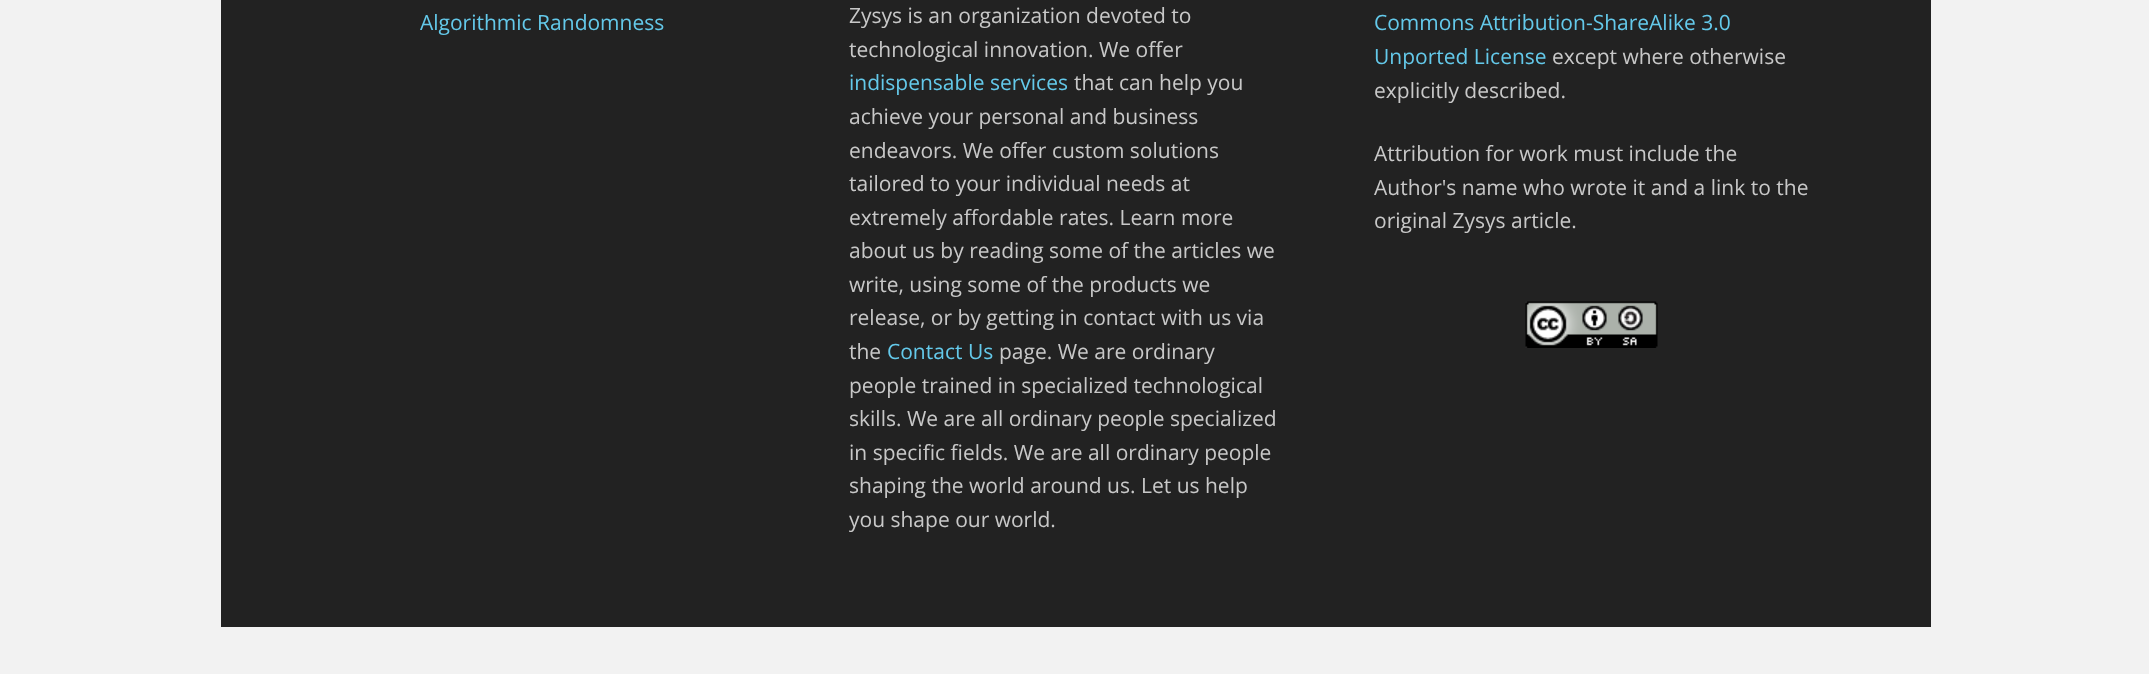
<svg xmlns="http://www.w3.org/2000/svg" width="2149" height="674">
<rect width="100%" height="100%" fill="#f2f2f2"/>
<rect x="221" width="1710" height="627" fill="#222"/>
<text x="420" y="30" style="font-family:Open Sans;font-size:21px;fill:#64c9ea">Algorithmic Randomness</text>
<text x="849" y="23" style="font-family:Open Sans;font-size:21px;fill:#c8c8c8">Zysys is an organization devoted to</text>
<text x="849" y="57" style="font-family:Open Sans;font-size:21px;fill:#c8c8c8">technological innovation. We offer</text>
<text x="849" y="90" style="font-family:Open Sans;font-size:21px;fill:#64c9ea">indispensable services</text>
<text x="1074" y="90" style="font-family:Open Sans;font-size:21px;fill:#c8c8c8">that can help you</text>
<text x="849" y="124" style="font-family:Open Sans;font-size:21px;fill:#c8c8c8">achieve your personal and business</text>
<text x="849" y="158" style="font-family:Open Sans;font-size:21px;fill:#c8c8c8">endeavors. We offer custom solutions</text>
<text x="849" y="191" style="font-family:Open Sans;font-size:21px;fill:#c8c8c8">tailored to your individual needs at</text>
<text x="849" y="225" style="font-family:Open Sans;font-size:21px;fill:#c8c8c8">extremely affordable rates. Learn more</text>
<text x="849" y="258" style="font-family:Open Sans;font-size:21px;fill:#c8c8c8">about us by reading some of the articles we</text>
<text x="849" y="292" style="font-family:Open Sans;font-size:21px;fill:#c8c8c8">write, using some of the products we</text>
<text x="849" y="325" style="font-family:Open Sans;font-size:21px;fill:#c8c8c8">release, or by getting in contact with us via</text>
<text x="849" y="359" style="font-family:Open Sans;font-size:21px;fill:#c8c8c8">the</text>
<text x="887" y="359" style="font-family:Open Sans;font-size:21px;fill:#64c9ea">Contact Us</text>
<text x="999" y="359" style="font-family:Open Sans;font-size:21px;fill:#c8c8c8">page. We are ordinary</text>
<text x="849" y="393" style="font-family:Open Sans;font-size:21px;fill:#c8c8c8">people trained in specialized technological</text>
<text x="849" y="426" style="font-family:Open Sans;font-size:21px;fill:#c8c8c8">skills. We are all ordinary people specialized</text>
<text x="849" y="460" style="font-family:Open Sans;font-size:21px;fill:#c8c8c8">in specific fields. We are all ordinary people</text>
<text x="849" y="493" style="font-family:Open Sans;font-size:21px;fill:#c8c8c8">shaping the world around us. Let us help</text>
<text x="849" y="527" style="font-family:Open Sans;font-size:21px;fill:#c8c8c8">you shape our world.</text>
<text x="1374" y="30" style="font-family:Open Sans;font-size:21px;fill:#64c9ea">Commons Attribution-ShareAlike 3.0</text>
<text x="1374" y="64" style="font-family:Open Sans;font-size:21px;fill:#64c9ea">Unported License</text>
<text x="1552" y="64" style="font-family:Open Sans;font-size:21px;fill:#c8c8c8">except where otherwise</text>
<text x="1374" y="98" style="font-family:Open Sans;font-size:21px;fill:#c8c8c8">explicitly described.</text>
<text x="1374" y="161" style="font-family:Open Sans;font-size:21px;fill:#c8c8c8">Attribution for work must include the</text>
<text x="1374" y="195" style="font-family:Open Sans;font-size:21px;fill:#c8c8c8">Author's name who wrote it and a link to the</text>
<text x="1374" y="228" style="font-family:Open Sans;font-size:21px;fill:#c8c8c8">original Zysys article.</text>
<image x="1525" y="301" width="133" height="47" href="media/1.png"/>
</svg>
